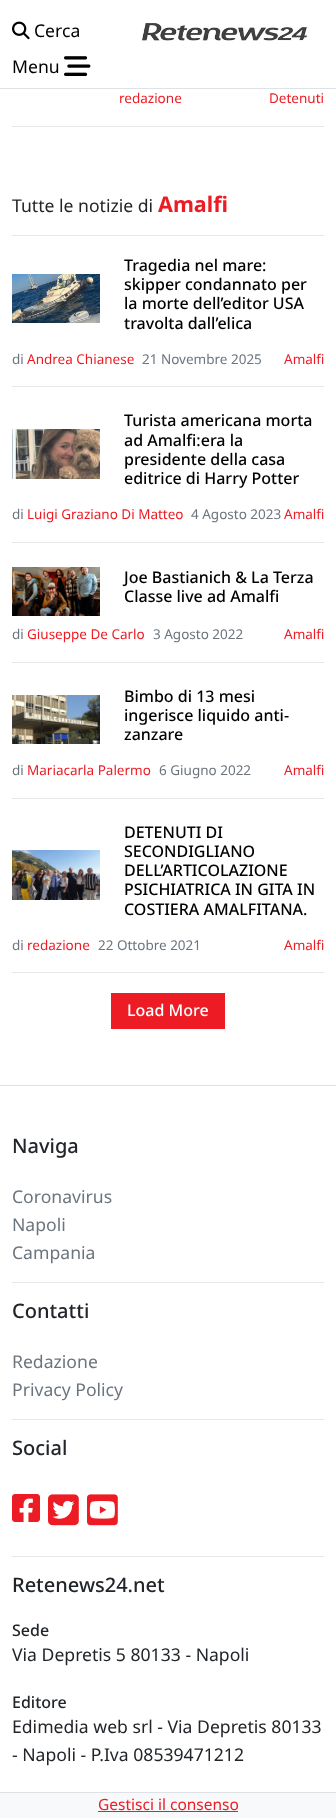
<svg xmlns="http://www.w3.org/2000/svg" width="336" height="1818">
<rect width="100%" height="100%" fill="#fff"/>
<rect y="88" width="336" height="1" fill="#dee2e6"/>
<image x="12" y="21" width="18" height="19" href="media/1.png"/>
<text x="34" y="37" style="font-family:Noto Sans;font-size:17.6px;fill:#000">Cerca</text>
<image x="141" y="23" width="167" height="18" href="media/2.png"/>
<text x="12" y="73" style="font-family:Noto Sans;font-size:17.6px;fill:#000">Menu</text>
<image x="64" y="56" width="27" height="20" href="media/3.png"/>
<text x="119" y="103" style="font-family:Noto Sans;font-size:13.5px;fill:#ed1c24">redazione</text>
<text x="269" y="103" style="font-family:Noto Sans;font-size:13.5px;fill:#ed1c24">Detenuti</text>
<rect x="12" y="126" width="312" height="1" fill="#e8e8e8"/>
<text x="12" y="212" style="font-family:Noto Sans;font-size:17.6px;fill:#212529">Tutte le notizie di</text>
<text x="158" y="212" style="font-family:Noto Sans;font-size:21.5px;font-weight:bold;fill:#ed1c24">Amalfi</text>
<rect x="12" y="235" width="312" height="1" fill="#e8e8e8"/>
<image x="12" y="274" width="88" height="49" href="media/4.png"/>
<text x="124" y="271" style="font-family:Noto Sans;font-size:16px;font-weight:500;fill:#000">Tragedia nel mare:</text>
<text x="124" y="290" style="font-family:Noto Sans;font-size:16px;font-weight:500;fill:#000">skipper condannato per</text>
<text x="124" y="309" style="font-family:Noto Sans;font-size:16px;font-weight:500;fill:#000">la morte dell’editor USA</text>
<text x="124" y="329" style="font-family:Noto Sans;font-size:16px;font-weight:500;fill:#000">travolta dall’elica</text>
<text x="12" y="364" style="font-family:Noto Sans;font-size:13.5px;fill:#6c757d">di</text>
<text x="27" y="364" style="font-family:Noto Sans;font-size:13.5px;fill:#ed1c24">Andrea Chianese</text>
<text x="142" y="364" style="font-family:Noto Sans;font-size:13.5px;fill:#6c757d">21 Novembre 2025</text>
<text x="284" y="364" style="font-family:Noto Sans;font-size:13.5px;fill:#ed1c24">Amalfi</text>
<rect x="12" y="386" width="312" height="1" fill="#e8e8e8"/>
<image x="12" y="429" width="88" height="50" href="media/5.png"/>
<text x="124" y="426" style="font-family:Noto Sans;font-size:16px;font-weight:500;fill:#000">Turista americana morta</text>
<text x="124" y="446" style="font-family:Noto Sans;font-size:16px;font-weight:500;fill:#000">ad Amalfi:era la</text>
<text x="124" y="465" style="font-family:Noto Sans;font-size:16px;font-weight:500;fill:#000">presidente della casa</text>
<text x="124" y="484" style="font-family:Noto Sans;font-size:16px;font-weight:500;fill:#000">editrice di Harry Potter</text>
<text x="12" y="519" style="font-family:Noto Sans;font-size:13.5px;fill:#6c757d">di</text>
<text x="27" y="519" style="font-family:Noto Sans;font-size:13.5px;fill:#ed1c24">Luigi Graziano Di Matteo</text>
<text x="191" y="519" style="font-family:Noto Sans;font-size:13.5px;fill:#6c757d">4 Agosto 2023</text>
<text x="284" y="519" style="font-family:Noto Sans;font-size:13.5px;fill:#ed1c24">Amalfi</text>
<rect x="12" y="542" width="312" height="1" fill="#e8e8e8"/>
<image x="12" y="567" width="88" height="49" href="media/6.png"/>
<text x="124" y="583" style="font-family:Noto Sans;font-size:16px;font-weight:500;fill:#000">Joe Bastianich &amp; La Terza</text>
<text x="124" y="602" style="font-family:Noto Sans;font-size:16px;font-weight:500;fill:#000">Classe live ad Amalfi</text>
<text x="12" y="639" style="font-family:Noto Sans;font-size:13.5px;fill:#6c757d">di</text>
<text x="27" y="639" style="font-family:Noto Sans;font-size:13.5px;fill:#ed1c24">Giuseppe De Carlo</text>
<text x="153" y="639" style="font-family:Noto Sans;font-size:13.5px;fill:#6c757d">3 Agosto 2022</text>
<text x="284" y="639" style="font-family:Noto Sans;font-size:13.5px;fill:#ed1c24">Amalfi</text>
<rect x="12" y="662" width="312" height="1" fill="#e8e8e8"/>
<image x="12" y="695" width="88" height="49" href="media/7.png"/>
<text x="124" y="702" style="font-family:Noto Sans;font-size:16px;font-weight:500;fill:#000">Bimbo di 13 mesi</text>
<text x="124" y="721" style="font-family:Noto Sans;font-size:16px;font-weight:500;fill:#000">ingerisce liquido anti-</text>
<text x="124" y="740" style="font-family:Noto Sans;font-size:16px;font-weight:500;fill:#000">zanzare</text>
<text x="12" y="775" style="font-family:Noto Sans;font-size:13.5px;fill:#6c757d">di</text>
<text x="27" y="775" style="font-family:Noto Sans;font-size:13.5px;fill:#ed1c24">Mariacarla Palermo</text>
<text x="159" y="775" style="font-family:Noto Sans;font-size:13.5px;fill:#6c757d">6 Giugno 2022</text>
<text x="284" y="775" style="font-family:Noto Sans;font-size:13.5px;fill:#ed1c24">Amalfi</text>
<rect x="12" y="798" width="312" height="1" fill="#e8e8e8"/>
<image x="12" y="850" width="88" height="50" href="media/8.png"/>
<text x="124" y="838" style="font-family:Noto Sans;font-size:16px;font-weight:500;fill:#000">DETENUTI DI</text>
<text x="124" y="857" style="font-family:Noto Sans;font-size:16px;font-weight:500;fill:#000">SECONDIGLIANO</text>
<text x="124" y="876" style="font-family:Noto Sans;font-size:16px;font-weight:500;fill:#000">DELL’ARTICOLAZIONE</text>
<text x="124" y="895" style="font-family:Noto Sans;font-size:16px;font-weight:500;fill:#000">PSICHIATRICA IN GITA IN</text>
<text x="124" y="915" style="font-family:Noto Sans;font-size:16px;font-weight:500;fill:#000">COSTIERA AMALFITANA.</text>
<text x="12" y="950" style="font-family:Noto Sans;font-size:13.5px;fill:#6c757d">di</text>
<text x="27" y="950" style="font-family:Noto Sans;font-size:13.5px;fill:#ed1c24">redazione</text>
<text x="98" y="950" style="font-family:Noto Sans;font-size:13.5px;fill:#6c757d">22 Ottobre 2021</text>
<text x="284" y="950" style="font-family:Noto Sans;font-size:13.5px;fill:#ed1c24">Amalfi</text>
<rect x="12" y="972" width="312" height="1" fill="#e8e8e8"/>
<rect x="111" y="993" width="114" height="36" fill="#ed1c24"/>
<text x="127" y="1016" style="font-family:Noto Sans;font-size:16px;font-weight:500;fill:#fff">Load More</text>
<rect y="1085" width="336" height="1" fill="#dee2e6"/>
<text x="12" y="1153" style="font-family:Noto Sans;font-size:20px;font-weight:500;fill:#212529">Naviga</text>
<text x="12" y="1203" style="font-family:Noto Sans;font-size:17.6px;fill:#6c757d">Coronavirus</text>
<text x="12" y="1231" style="font-family:Noto Sans;font-size:17.6px;fill:#6c757d">Napoli</text>
<text x="12" y="1259" style="font-family:Noto Sans;font-size:17.6px;fill:#6c757d">Campania</text>
<rect x="12" y="1282" width="312" height="1" fill="#e8e8e8"/>
<text x="12" y="1318" style="font-family:Noto Sans;font-size:20px;font-weight:500;fill:#212529">Contatti</text>
<text x="12" y="1368" style="font-family:Noto Sans;font-size:17.6px;fill:#6c757d">Redazione</text>
<text x="12" y="1396" style="font-family:Noto Sans;font-size:17.6px;fill:#6c757d">Privacy Policy</text>
<rect x="12" y="1419" width="312" height="1" fill="#e8e8e8"/>
<text x="12" y="1455" style="font-family:Noto Sans;font-size:20px;font-weight:500;fill:#212529">Social</text>
<image x="12" y="1494" width="28" height="28" href="media/9.png"/>
<image x="48" y="1494" width="31" height="32" href="media/10.png"/>
<image x="87" y="1494" width="31" height="32" href="media/11.png"/>
<rect x="12" y="1556" width="312" height="1" fill="#e8e8e8"/>
<text x="12" y="1592" style="font-family:Noto Sans;font-size:20px;font-weight:500;fill:#212529">Retenews24.net</text>
<text x="12" y="1636" style="font-family:Noto Sans;font-size:16px;font-weight:500;fill:#212529">Sede</text>
<text x="12" y="1661" style="font-family:Noto Sans;font-size:17.6px;fill:#212529">Via Depretis 5 80133 - Napoli</text>
<text x="12" y="1708" style="font-family:Noto Sans;font-size:16px;font-weight:500;fill:#212529">Editore</text>
<text x="12" y="1733" style="font-family:Noto Sans;font-size:17.6px;fill:#212529">Edimedia web srl - Via Depretis 80133</text>
<text x="12" y="1761" style="font-family:Noto Sans;font-size:17.6px;fill:#212529">- Napoli - P.Iva 08539471212</text>
<rect y="1793" width="336" height="25" fill="#f8f9fa"/>
<rect y="1792" width="336" height="1" fill="#dee2e6"/>
<text x="98" y="1810" style="font-family:Noto Sans;font-size:15.5px;fill:#ed1c24">Gestisci il consenso</text>
<rect x="98" y="1811" width="140" height="1" fill="#ed1c24"/>
</svg>
